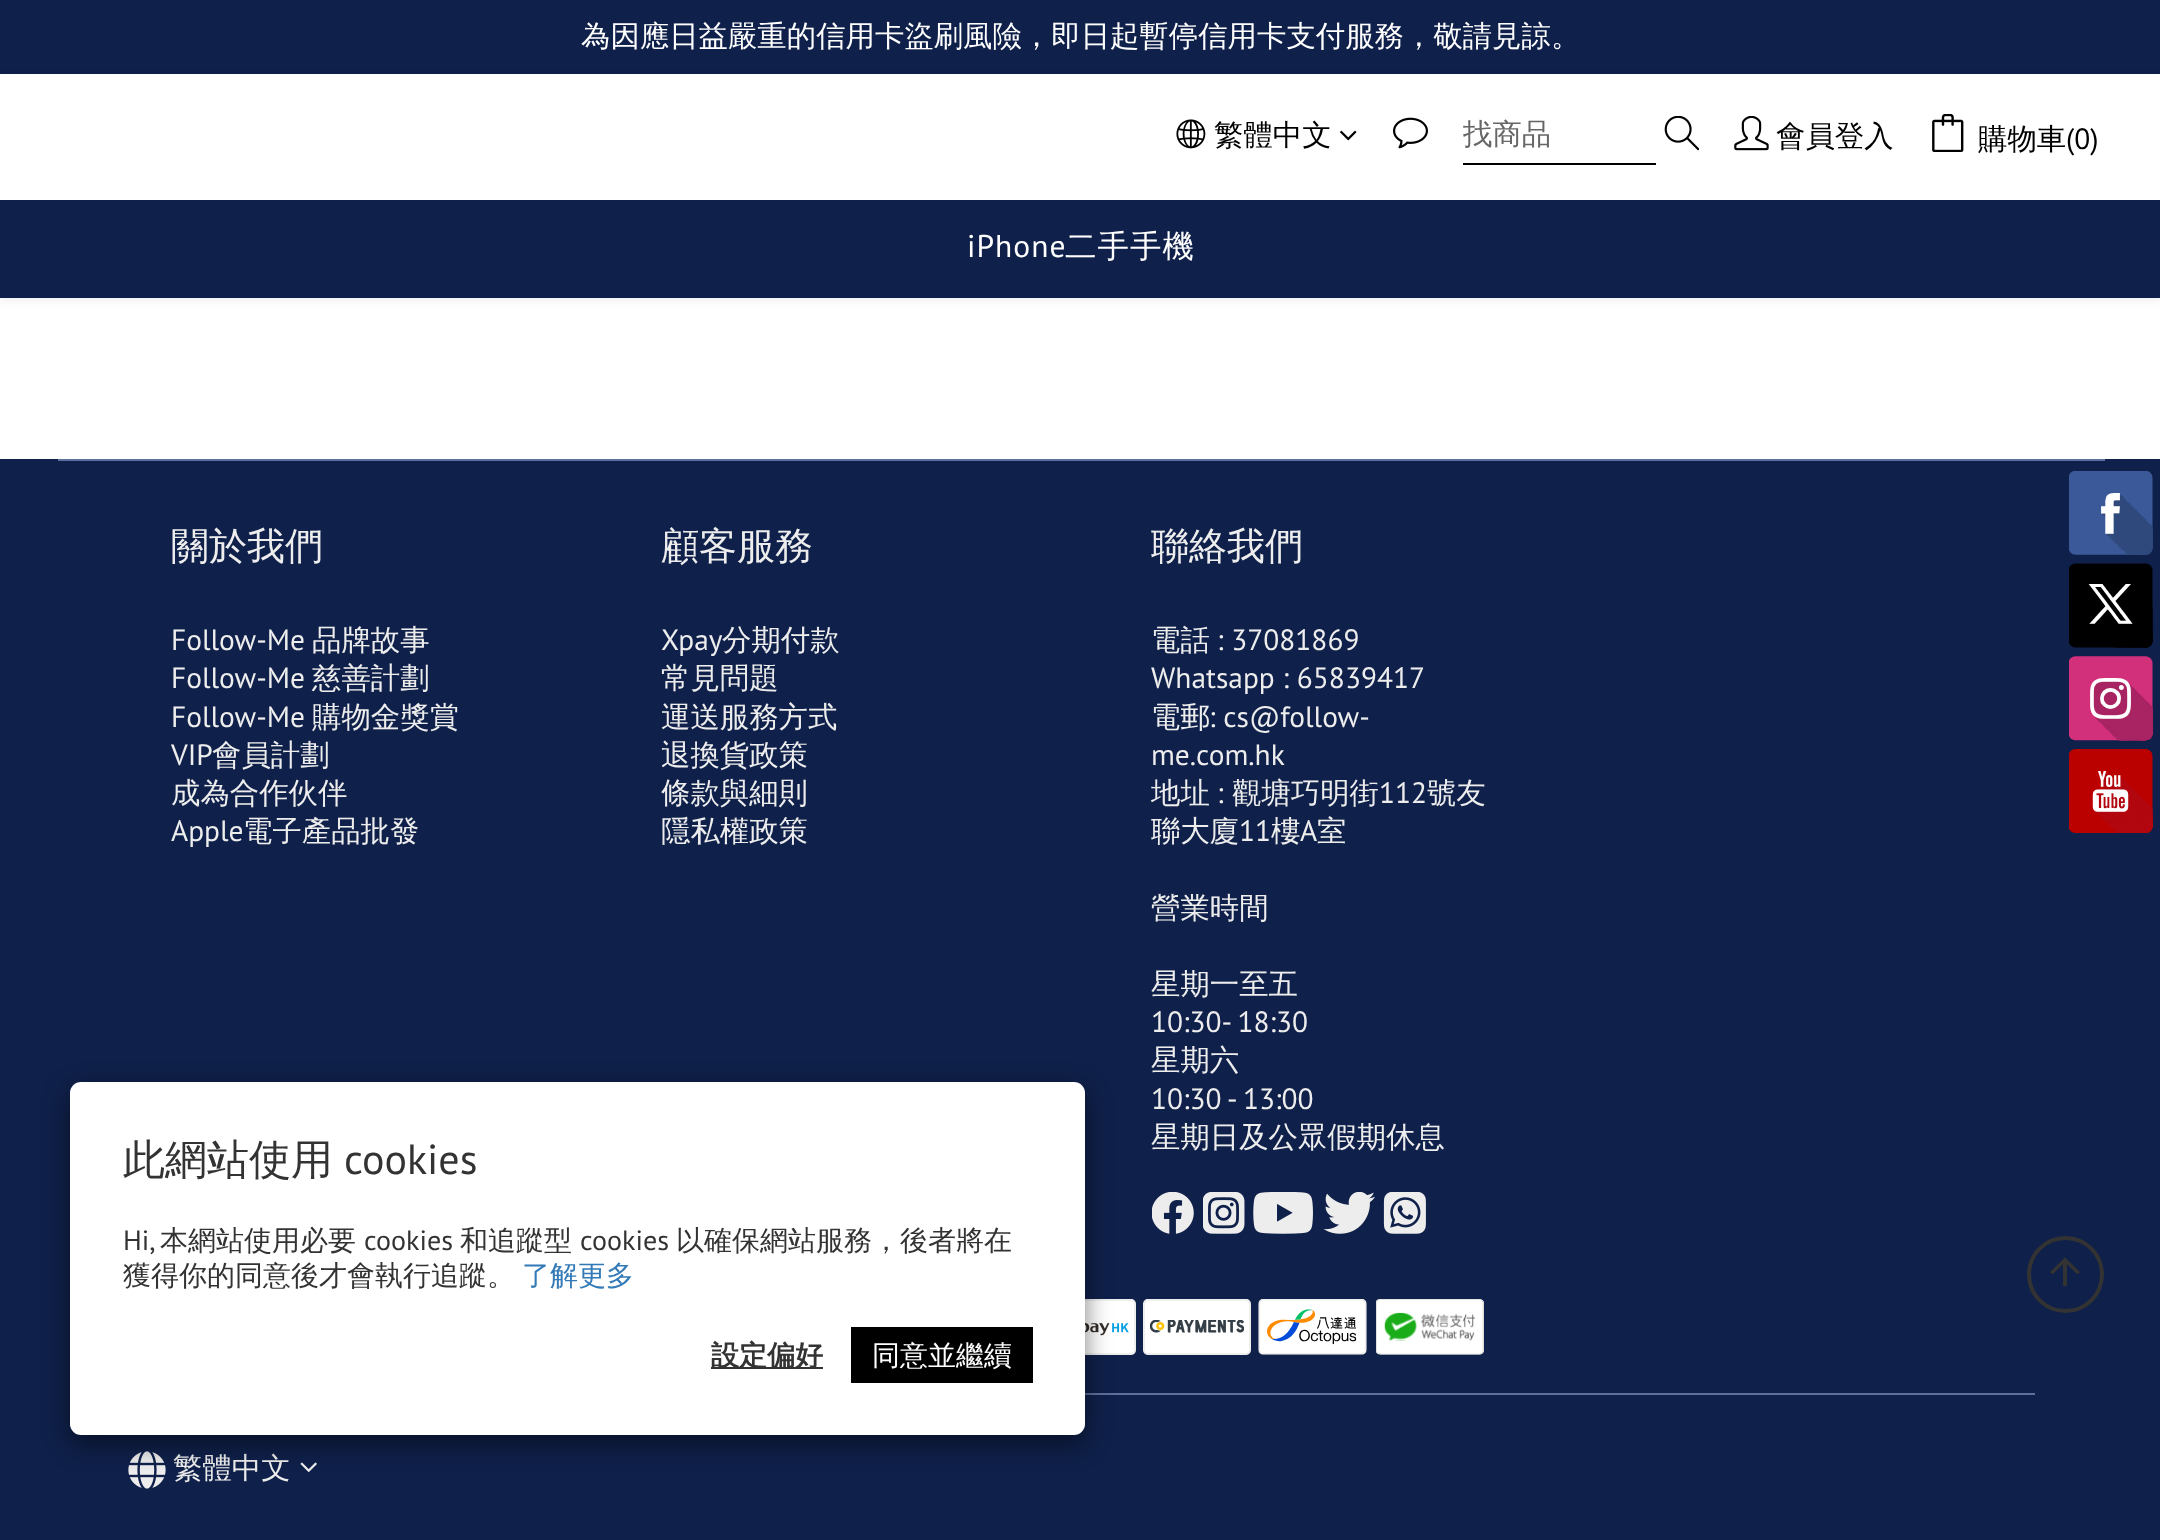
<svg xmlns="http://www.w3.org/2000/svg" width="2160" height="1540">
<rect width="100%" height="100%" fill="#fff"/>
<rect width="2160" height="74" fill="#0f204a"/>
<text x="581" y="46" style="font-family:WenQuanYi Zen Hei;font-size:29.4px;font-weight:500;fill:#fff">為因應日益嚴重的信用卡盜刷風險，即日起暫停信用卡支付服務，敬請見諒。</text>
<rect y="77" width="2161" height="224" fill="#0000000f" filter="blur(5px)"/>
<rect y="74" width="2160" height="126" fill="#fff"/>
<image x="1176" y="119" width="30" height="30" href="media/1.png"/>
<text x="1214" y="145" style="font-family:WenQuanYi Zen Hei;font-size:29.4px;font-weight:500;fill:#000">繁體中文</text>
<image x="1340" y="130" width="17" height="11" href="media/2.png"/>
<image x="1393" y="117" width="35" height="32" href="media/3.png"/>
<rect x="1463" y="163" width="193" height="2" fill="#000"/>
<text x="1463" y="144" style="font-family:WenQuanYi Zen Hei;font-size:29.4px;font-weight:500;fill:#666">找商品</text>
<image x="1664" y="116" width="35" height="35" href="media/4.png"/>
<image x="1734" y="116" width="35" height="35" href="media/5.png"/>
<text x="1776" y="146" style="font-family:WenQuanYi Zen Hei;font-size:29.4px;font-weight:500;fill:#000">會員登入</text>
<image x="1932" y="114" width="32" height="38" href="media/6.png"/>
<text x="1978" y="149" style="font-family:WenQuanYi Zen Hei;font-size:29.4px;font-weight:500;fill:#000">購物車</text>
<text x="2066" y="149" style="font-family:PT Sans;font-size:29.4px;fill:#000">(0)</text>
<rect y="200" width="2160" height="98" fill="#0f204a"/>
<text x="967" y="257" style="font-family:PT Sans;font-size:31.5px;letter-spacing:1px;fill:#fff">iPhone</text>
<text x="1065" y="257" style="font-family:WenQuanYi Zen Hei;font-size:31.5px;font-weight:500;letter-spacing:1px;fill:#fff">二手手機</text>
<rect y="459" width="2160" height="1081" fill="#0f204a"/>
<rect x="58" y="459" width="2047" height="2" fill="#5d6f9c"/>
<text x="171" y="559" style="font-family:WenQuanYi Zen Hei;font-size:38px;font-weight:500;fill:#ededed">關於我們</text>
<text x="171" y="650" style="font-family:PT Sans;font-size:29.4px;fill:#ededed">Follow-Me</text>
<text x="312" y="650" style="font-family:WenQuanYi Zen Hei;font-size:29.4px;font-weight:500;fill:#ededed">品牌故事</text>
<text x="171" y="688" style="font-family:PT Sans;font-size:29.4px;fill:#ededed">Follow-Me</text>
<text x="312" y="688" style="font-family:WenQuanYi Zen Hei;font-size:29.4px;font-weight:500;fill:#ededed">慈善計劃</text>
<text x="171" y="727" style="font-family:PT Sans;font-size:29.4px;fill:#ededed">Follow-Me</text>
<text x="312" y="727" style="font-family:WenQuanYi Zen Hei;font-size:29.4px;font-weight:500;fill:#ededed">購物金獎賞</text>
<text x="171" y="765" style="font-family:PT Sans;font-size:29.4px;fill:#ededed">VIP</text>
<text x="212" y="765" style="font-family:WenQuanYi Zen Hei;font-size:29.4px;font-weight:500;fill:#ededed">會員計劃</text>
<text x="171" y="803" style="font-family:WenQuanYi Zen Hei;font-size:29.4px;font-weight:500;fill:#ededed">成為合作伙伴</text>
<text x="171" y="841" style="font-family:PT Sans;font-size:29.4px;fill:#ededed">Apple</text>
<text x="243" y="841" style="font-family:WenQuanYi Zen Hei;font-size:29.4px;font-weight:500;fill:#ededed">電子產品批發</text>
<text x="661" y="559" style="font-family:WenQuanYi Zen Hei;font-size:38px;font-weight:500;fill:#ededed">顧客服務</text>
<text x="661" y="650" style="font-family:PT Sans;font-size:29.4px;fill:#ededed">Xpay</text>
<text x="722" y="650" style="font-family:WenQuanYi Zen Hei;font-size:29.4px;font-weight:500;fill:#ededed">分期付款</text>
<text x="661" y="688" style="font-family:WenQuanYi Zen Hei;font-size:29.4px;font-weight:500;fill:#ededed">常見問題</text>
<text x="661" y="727" style="font-family:WenQuanYi Zen Hei;font-size:29.4px;font-weight:500;fill:#ededed">運送服務方式</text>
<text x="661" y="765" style="font-family:WenQuanYi Zen Hei;font-size:29.4px;font-weight:500;fill:#ededed">退換貨政策</text>
<text x="661" y="803" style="font-family:WenQuanYi Zen Hei;font-size:29.4px;font-weight:500;fill:#ededed">條款與細則</text>
<text x="661" y="841" style="font-family:WenQuanYi Zen Hei;font-size:29.4px;font-weight:500;fill:#ededed">隱私權政策</text>
<text x="1151" y="559" style="font-family:WenQuanYi Zen Hei;font-size:38px;font-weight:500;fill:#ededed">聯絡我們</text>
<text x="1151" y="650" style="font-family:WenQuanYi Zen Hei;font-size:29.4px;font-weight:500;fill:#ededed">電話</text>
<text x="1217" y="650" style="font-family:PT Sans;font-size:29.4px;fill:#ededed">: 37081869</text>
<text x="1151" y="688" style="font-family:PT Sans;font-size:29.4px;fill:#ededed">Whatsapp : 65839417</text>
<text x="1151" y="727" style="font-family:WenQuanYi Zen Hei;font-size:29.4px;font-weight:500;fill:#ededed">電郵</text>
<text x="1209" y="727" style="font-family:PT Sans;font-size:29.4px;fill:#ededed">: cs@follow-</text>
<text x="1151" y="765" style="font-family:PT Sans;font-size:29.4px;fill:#ededed">me.com.hk</text>
<text x="1151" y="803" style="font-family:WenQuanYi Zen Hei;font-size:29.4px;font-weight:500;fill:#ededed">地址</text>
<text x="1217" y="803" style="font-family:PT Sans;font-size:29.4px;fill:#ededed">:</text>
<text x="1232" y="803" style="font-family:WenQuanYi Zen Hei;font-size:29.4px;font-weight:500;fill:#ededed">觀塘巧明街</text>
<text x="1379" y="803" style="font-family:PT Sans;font-size:29.4px;fill:#ededed">112</text>
<text x="1427" y="803" style="font-family:WenQuanYi Zen Hei;font-size:29.4px;font-weight:500;fill:#ededed">號友</text>
<text x="1151" y="841" style="font-family:WenQuanYi Zen Hei;font-size:29.4px;font-weight:500;fill:#ededed">聯大廈</text>
<text x="1239" y="841" style="font-family:PT Sans;font-size:29.4px;fill:#ededed">11</text>
<text x="1271" y="841" style="font-family:WenQuanYi Zen Hei;font-size:29.4px;font-weight:500;fill:#ededed">樓</text>
<text x="1300" y="841" style="font-family:PT Sans;font-size:29.4px;fill:#ededed">A</text>
<text x="1317" y="841" style="font-family:WenQuanYi Zen Hei;font-size:29.4px;font-weight:500;fill:#ededed">室</text>
<text x="1151" y="918" style="font-family:WenQuanYi Zen Hei;font-size:29.4px;font-weight:500;fill:#ededed">營業時間</text>
<text x="1151" y="994" style="font-family:WenQuanYi Zen Hei;font-size:29.4px;font-weight:500;fill:#ededed">星期一至五</text>
<text x="1151" y="1032" style="font-family:PT Sans;font-size:29.4px;fill:#ededed">10:30- 18:30</text>
<text x="1151" y="1070" style="font-family:WenQuanYi Zen Hei;font-size:29.4px;font-weight:500;fill:#ededed">星期六</text>
<text x="1151" y="1109" style="font-family:PT Sans;font-size:29.4px;fill:#ededed">10:30 - 13:00</text>
<text x="1151" y="1147" style="font-family:WenQuanYi Zen Hei;font-size:29.4px;font-weight:500;fill:#ededed">星期日及公眾假期休息</text>
<image x="1152" y="1192" width="42" height="42" href="media/7.png"/>
<image x="1203" y="1192" width="42" height="42" href="media/8.png"/>
<image x="1253" y="1192" width="60" height="42" href="media/9.png"/>
<image x="1323" y="1192" width="52" height="42" href="media/10.png"/>
<image x="1383" y="1192" width="43" height="42" href="media/11.png"/>
<image x="1085" y="1299" width="51" height="56" href="media/12.png"/>
<image x="1143" y="1299" width="108" height="56" href="media/13.png"/>
<image x="1258" y="1299" width="109" height="56" href="media/14.png"/>
<image x="1376" y="1299" width="108" height="56" href="media/15.png"/>
<rect x="1085" y="1393" width="950" height="2" fill="#5d6f9c"/>
<image x="128" y="1451" width="38" height="38" href="media/16.png"/>
<text x="173" y="1478" style="font-family:WenQuanYi Zen Hei;font-size:29.4px;font-weight:500;fill:#ededed">繁體中文</text>
<image x="300" y="1462" width="17" height="10" href="media/17.png"/>
<image x="2069" y="471" width="84" height="362" href="media/18.png"/>
<rect x="70" y="1090" width="1015" height="354" rx="11" fill="#00000080" filter="blur(13px)"/>
<rect x="70" y="1082" width="1015" height="353" rx="11" fill="#fff"/>
<text x="123" y="1174" style="font-family:WenQuanYi Zen Hei;font-size:42px;font-weight:500;fill:#333">此網站使用</text>
<text x="344" y="1174" style="font-family:PT Sans;font-size:42px;fill:#333">cookies</text>
<text x="123" y="1250" style="font-family:PT Sans;font-size:28px;fill:#333">Hi,</text>
<text x="160" y="1250" style="font-family:WenQuanYi Zen Hei;font-size:28px;font-weight:500;fill:#333">本網站使用必要</text>
<text x="364" y="1250" style="font-family:PT Sans;font-size:28px;fill:#333">cookies</text>
<text x="460" y="1250" style="font-family:WenQuanYi Zen Hei;font-size:28px;font-weight:500;fill:#333">和追蹤型</text>
<text x="580" y="1250" style="font-family:PT Sans;font-size:28px;fill:#333">cookies</text>
<text x="676" y="1250" style="font-family:WenQuanYi Zen Hei;font-size:28px;font-weight:500;fill:#333">以確保網站服務，後者將在</text>
<text x="123" y="1285" style="font-family:WenQuanYi Zen Hei;font-size:28px;font-weight:500;fill:#333">獲得你的同意後才會執行追蹤。</text>
<text x="522" y="1285" style="font-family:WenQuanYi Zen Hei;font-size:28px;font-weight:500;fill:#337ab7">了解更多</text>
<rect x="711" y="1367" width="112" height="2" fill="#333"/>
<text x="711" y="1365" style="font-family:WenQuanYi Zen Hei;font-size:28px;font-weight:bold;fill:#333">設定偏好</text>
<rect x="851" y="1327" width="182" height="56" fill="#000"/>
<text x="872" y="1365" style="font-family:WenQuanYi Zen Hei;font-size:28px;font-weight:500;fill:#fff">同意並繼續</text>
<circle cx="2065.5" cy="1274.5" r="36.5" fill="none" stroke="#333" stroke-width="4"/>
<path d="M2065 1257.5l15 14.5l-2.5 2.5l-15-14.5z" fill="#333"/>
<path d="M2065 1257.5l2.5 2.5l-15 14.5l-2.5-2.5z" fill="#333"/>
<rect x="2063" y="1262" width="4" height="24" fill="#333"/>
</svg>
